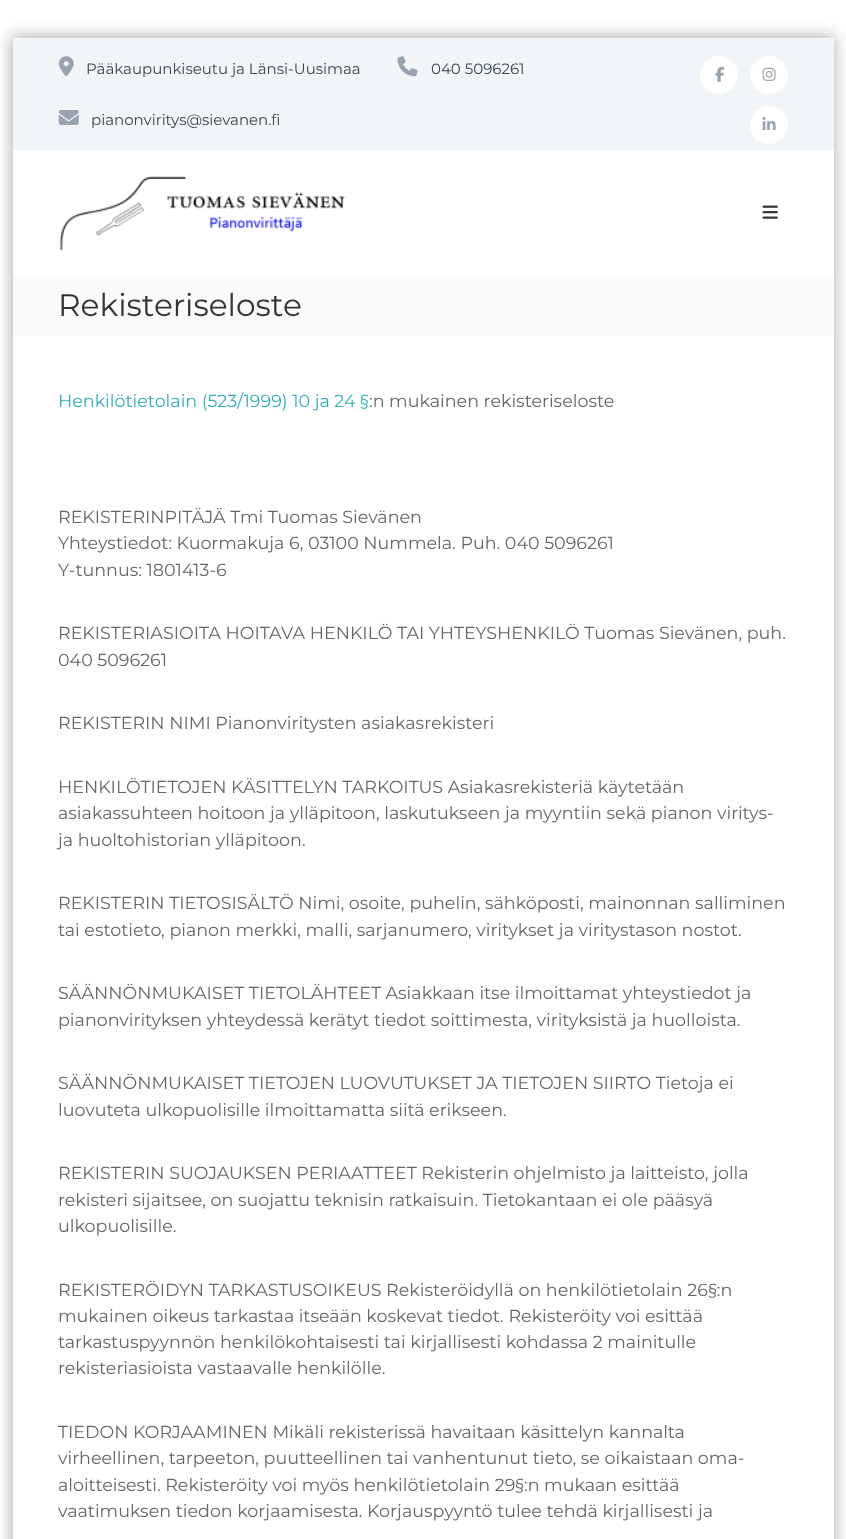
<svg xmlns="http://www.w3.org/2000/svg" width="846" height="1539">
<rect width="100%" height="100%" fill="#fff"/>
<rect x="11" y="36" width="824" height="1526" fill="#0000004d" filter="blur(7.5px)"/>
<rect x="13" y="150" width="821" height="1389" fill="#fff"/>
<rect x="13" y="38" width="821" height="112" fill="#f1f5f8"/>
<image x="58" y="56" width="16" height="21" href="media/1.png"/>
<text x="86" y="74" style="font-family:Montserrat;font-size:15px;fill:#384554">Pääkaupunkiseutu ja Länsi-Uusimaa</text>
<image x="397" y="56" width="21" height="21" href="media/2.png"/>
<text x="431" y="74" style="font-family:Montserrat;font-size:15px;fill:#384554">040 5096261</text>
<image x="58" y="110" width="21" height="15" href="media/3.png"/>
<text x="91" y="125" style="font-family:Montserrat;font-size:15px;fill:#384554">pianonviritys@sievanen.fi</text>
<circle cx="719" cy="75" r="19" fill="#fff"/>
<image x="715" y="66" width="9" height="16" href="media/4.png"/>
<circle cx="769" cy="75" r="19" fill="#fff"/>
<image x="762" y="67" width="14" height="14" href="media/5.png"/>
<circle cx="769" cy="125" r="19" fill="#fff"/>
<image x="762" y="116" width="14" height="14" href="media/6.png"/>
<image x="59" y="176" width="287" height="75" href="media/7.png"/>
<image x="762" y="205" width="16" height="14" href="media/8.png"/>
<rect x="13" y="276" width="821" height="60" fill="#fafafa"/>
<text x="58" y="316" style="font-family:Montserrat;font-size:31.25px;fill:#333">Rekisteriseloste</text>
<text x="58" y="407" style="font-family:Montserrat;font-size:17.5px;fill:#30afb8">Henkilötietolain (523/1999) 10 ja 24 §</text>
<text x="369" y="407" style="font-family:Montserrat;font-size:17.5px;fill:#666">:n mukainen rekisteriseloste</text>
<text x="58" y="523" style="font-family:Montserrat;font-size:17.5px;fill:#666">REKISTERINPITÄJÄ Tmi Tuomas Sievänen</text>
<text x="58" y="549" style="font-family:Montserrat;font-size:17.5px;fill:#666">Yhteystiedot: Kuormakuja 6, 03100 Nummela. Puh. 040 5096261</text>
<text x="58" y="576" style="font-family:Montserrat;font-size:17.5px;fill:#666">Y-tunnus: 1801413-6</text>
<text x="58" y="639" style="font-family:Montserrat;font-size:17.5px;fill:#666">REKISTERIASIOITA HOITAVA HENKILÖ TAI YHTEYSHENKILÖ Tuomas Sievänen, puh.</text>
<text x="58" y="666" style="font-family:Montserrat;font-size:17.5px;fill:#666">040 5096261</text>
<text x="58" y="729" style="font-family:Montserrat;font-size:17.5px;fill:#666">REKISTERIN NIMI Pianonviritysten asiakasrekisteri</text>
<text x="58" y="793" style="font-family:Montserrat;font-size:17.5px;fill:#666">HENKILÖTIETOJEN KÄSITTELYN TARKOITUS Asiakasrekisteriä käytetään</text>
<text x="58" y="819" style="font-family:Montserrat;font-size:17.5px;fill:#666">asiakassuhteen hoitoon ja ylläpitoon, laskutukseen ja myyntiin sekä pianon viritys-</text>
<text x="58" y="846" style="font-family:Montserrat;font-size:17.5px;fill:#666">ja huoltohistorian ylläpitoon.</text>
<text x="58" y="909" style="font-family:Montserrat;font-size:17.5px;fill:#666">REKISTERIN TIETOSISÄLTÖ Nimi, osoite, puhelin, sähköposti, mainonnan salliminen</text>
<text x="58" y="936" style="font-family:Montserrat;font-size:17.5px;fill:#666">tai estotieto, pianon merkki, malli, sarjanumero, viritykset ja viritystason nostot.</text>
<text x="58" y="999" style="font-family:Montserrat;font-size:17.5px;fill:#666">SÄÄNNÖNMUKAISET TIETOLÄHTEET Asiakkaan itse ilmoittamat yhteystiedot ja</text>
<text x="58" y="1026" style="font-family:Montserrat;font-size:17.5px;fill:#666">pianonvirityksen yhteydessä kerätyt tiedot soittimesta, virityksistä ja huolloista.</text>
<text x="58" y="1089" style="font-family:Montserrat;font-size:17.5px;fill:#666">SÄÄNNÖNMUKAISET TIETOJEN LUOVUTUKSET JA TIETOJEN SIIRTO Tietoja ei</text>
<text x="58" y="1116" style="font-family:Montserrat;font-size:17.5px;fill:#666">luovuteta ulkopuolisille ilmoittamatta siitä erikseen.</text>
<text x="58" y="1179" style="font-family:Montserrat;font-size:17.5px;fill:#666">REKISTERIN SUOJAUKSEN PERIAATTEET Rekisterin ohjelmisto ja laitteisto, jolla</text>
<text x="58" y="1206" style="font-family:Montserrat;font-size:17.5px;fill:#666">rekisteri sijaitsee, on suojattu teknisin ratkaisuin. Tietokantaan ei ole pääsyä</text>
<text x="58" y="1232" style="font-family:Montserrat;font-size:17.5px;fill:#666">ulkopuolisille.</text>
<text x="58" y="1296" style="font-family:Montserrat;font-size:17.5px;fill:#666">REKISTERÖIDYN TARKASTUSOIKEUS Rekisteröidyllä on henkilötietolain 26§:n</text>
<text x="58" y="1322" style="font-family:Montserrat;font-size:17.5px;fill:#666">mukainen oikeus tarkastaa itseään koskevat tiedot. Rekisteröity voi esittää</text>
<text x="58" y="1348" style="font-family:Montserrat;font-size:17.5px;fill:#666">tarkastuspyynnön henkilökohtaisesti tai kirjallisesti kohdassa 2 mainitulle</text>
<text x="58" y="1374" style="font-family:Montserrat;font-size:17.5px;fill:#666">rekisteriasioista vastaavalle henkilölle.</text>
<text x="58" y="1438" style="font-family:Montserrat;font-size:17.5px;fill:#666">TIEDON KORJAAMINEN Mikäli rekisterissä havaitaan käsittelyn kannalta</text>
<text x="58" y="1464" style="font-family:Montserrat;font-size:17.5px;fill:#666">virheellinen, tarpeeton, puutteellinen tai vanhentunut tieto, se oikaistaan oma-</text>
<text x="58" y="1491" style="font-family:Montserrat;font-size:17.5px;fill:#666">aloitteisesti. Rekisteröity voi myös henkilötietolain 29§:n mukaan esittää</text>
<text x="58" y="1517" style="font-family:Montserrat;font-size:17.5px;fill:#666">vaatimuksen tiedon korjaamisesta. Korjauspyyntö tulee tehdä kirjallisesti ja</text>
</svg>
